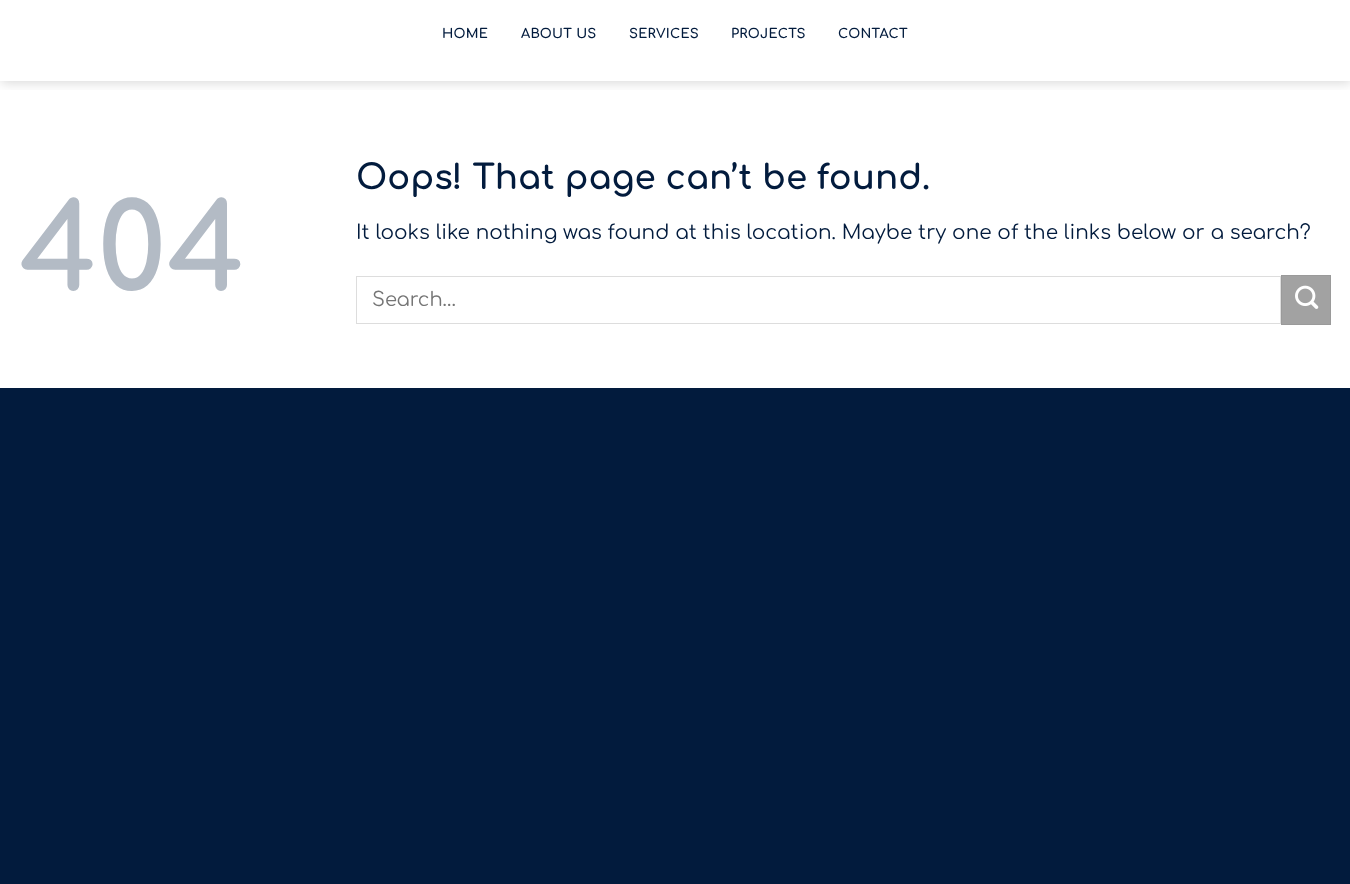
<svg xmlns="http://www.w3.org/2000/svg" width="1350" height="884">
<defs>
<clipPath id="clip1"><rect x="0" y="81" width="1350" height="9"/></clipPath>
</defs>
<rect width="100%" height="100%" fill="#021b3d"/>
<rect width="1350" height="388" fill="#fff"/>
<g clip-path="url(#clip1)">
<rect x="1" y="1" width="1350" height="82" fill="#00000026" filter="blur(6px)"/>
</g>
<text x="442" y="38" style="font-family:Comfortaa;font-size:13px;font-weight:bold;letter-spacing:0.25px;fill:#021b3d">HOME</text>
<text x="521" y="38" style="font-family:Comfortaa;font-size:13px;font-weight:bold;letter-spacing:0.25px;fill:#021b3d">ABOUT US</text>
<text x="629" y="38" style="font-family:Comfortaa;font-size:13px;font-weight:bold;letter-spacing:0.25px;fill:#021b3d">SERVICES</text>
<text x="731" y="38" style="font-family:Comfortaa;font-size:13px;font-weight:bold;letter-spacing:0.25px;fill:#021b3d">PROJECTS</text>
<text x="838" y="38" style="font-family:Comfortaa;font-size:13px;font-weight:bold;letter-spacing:0.25px;fill:#021b3d">CONTACT</text>
<text x="19" y="291" style="font-family:Comfortaa;font-size:120px;font-weight:bold;fill:#b3bbc5">404</text>
<text x="356" y="189" style="font-family:Comfortaa;font-size:34px;font-weight:bold;fill:#021b3d">Oops! That page can’t be found.</text>
<text x="356" y="239" style="font-family:Comfortaa;font-size:20px;fill:#021b3d">It looks like nothing was found at this location. Maybe try one of the links below or a search?</text>
<rect x="356.5" y="276.5" width="924" height="47" fill="none" stroke="#ddd"/>
<text x="372" y="306" style="font-family:Comfortaa;font-size:19.5px;fill:#757575">Search…</text>
<rect x="1281.5" y="275.5" width="49" height="49" fill="#a2a2a2" stroke="#9a9a9a"/>
<image x="1295" y="285" width="24" height="24" href="media/1.png"/>
</svg>
